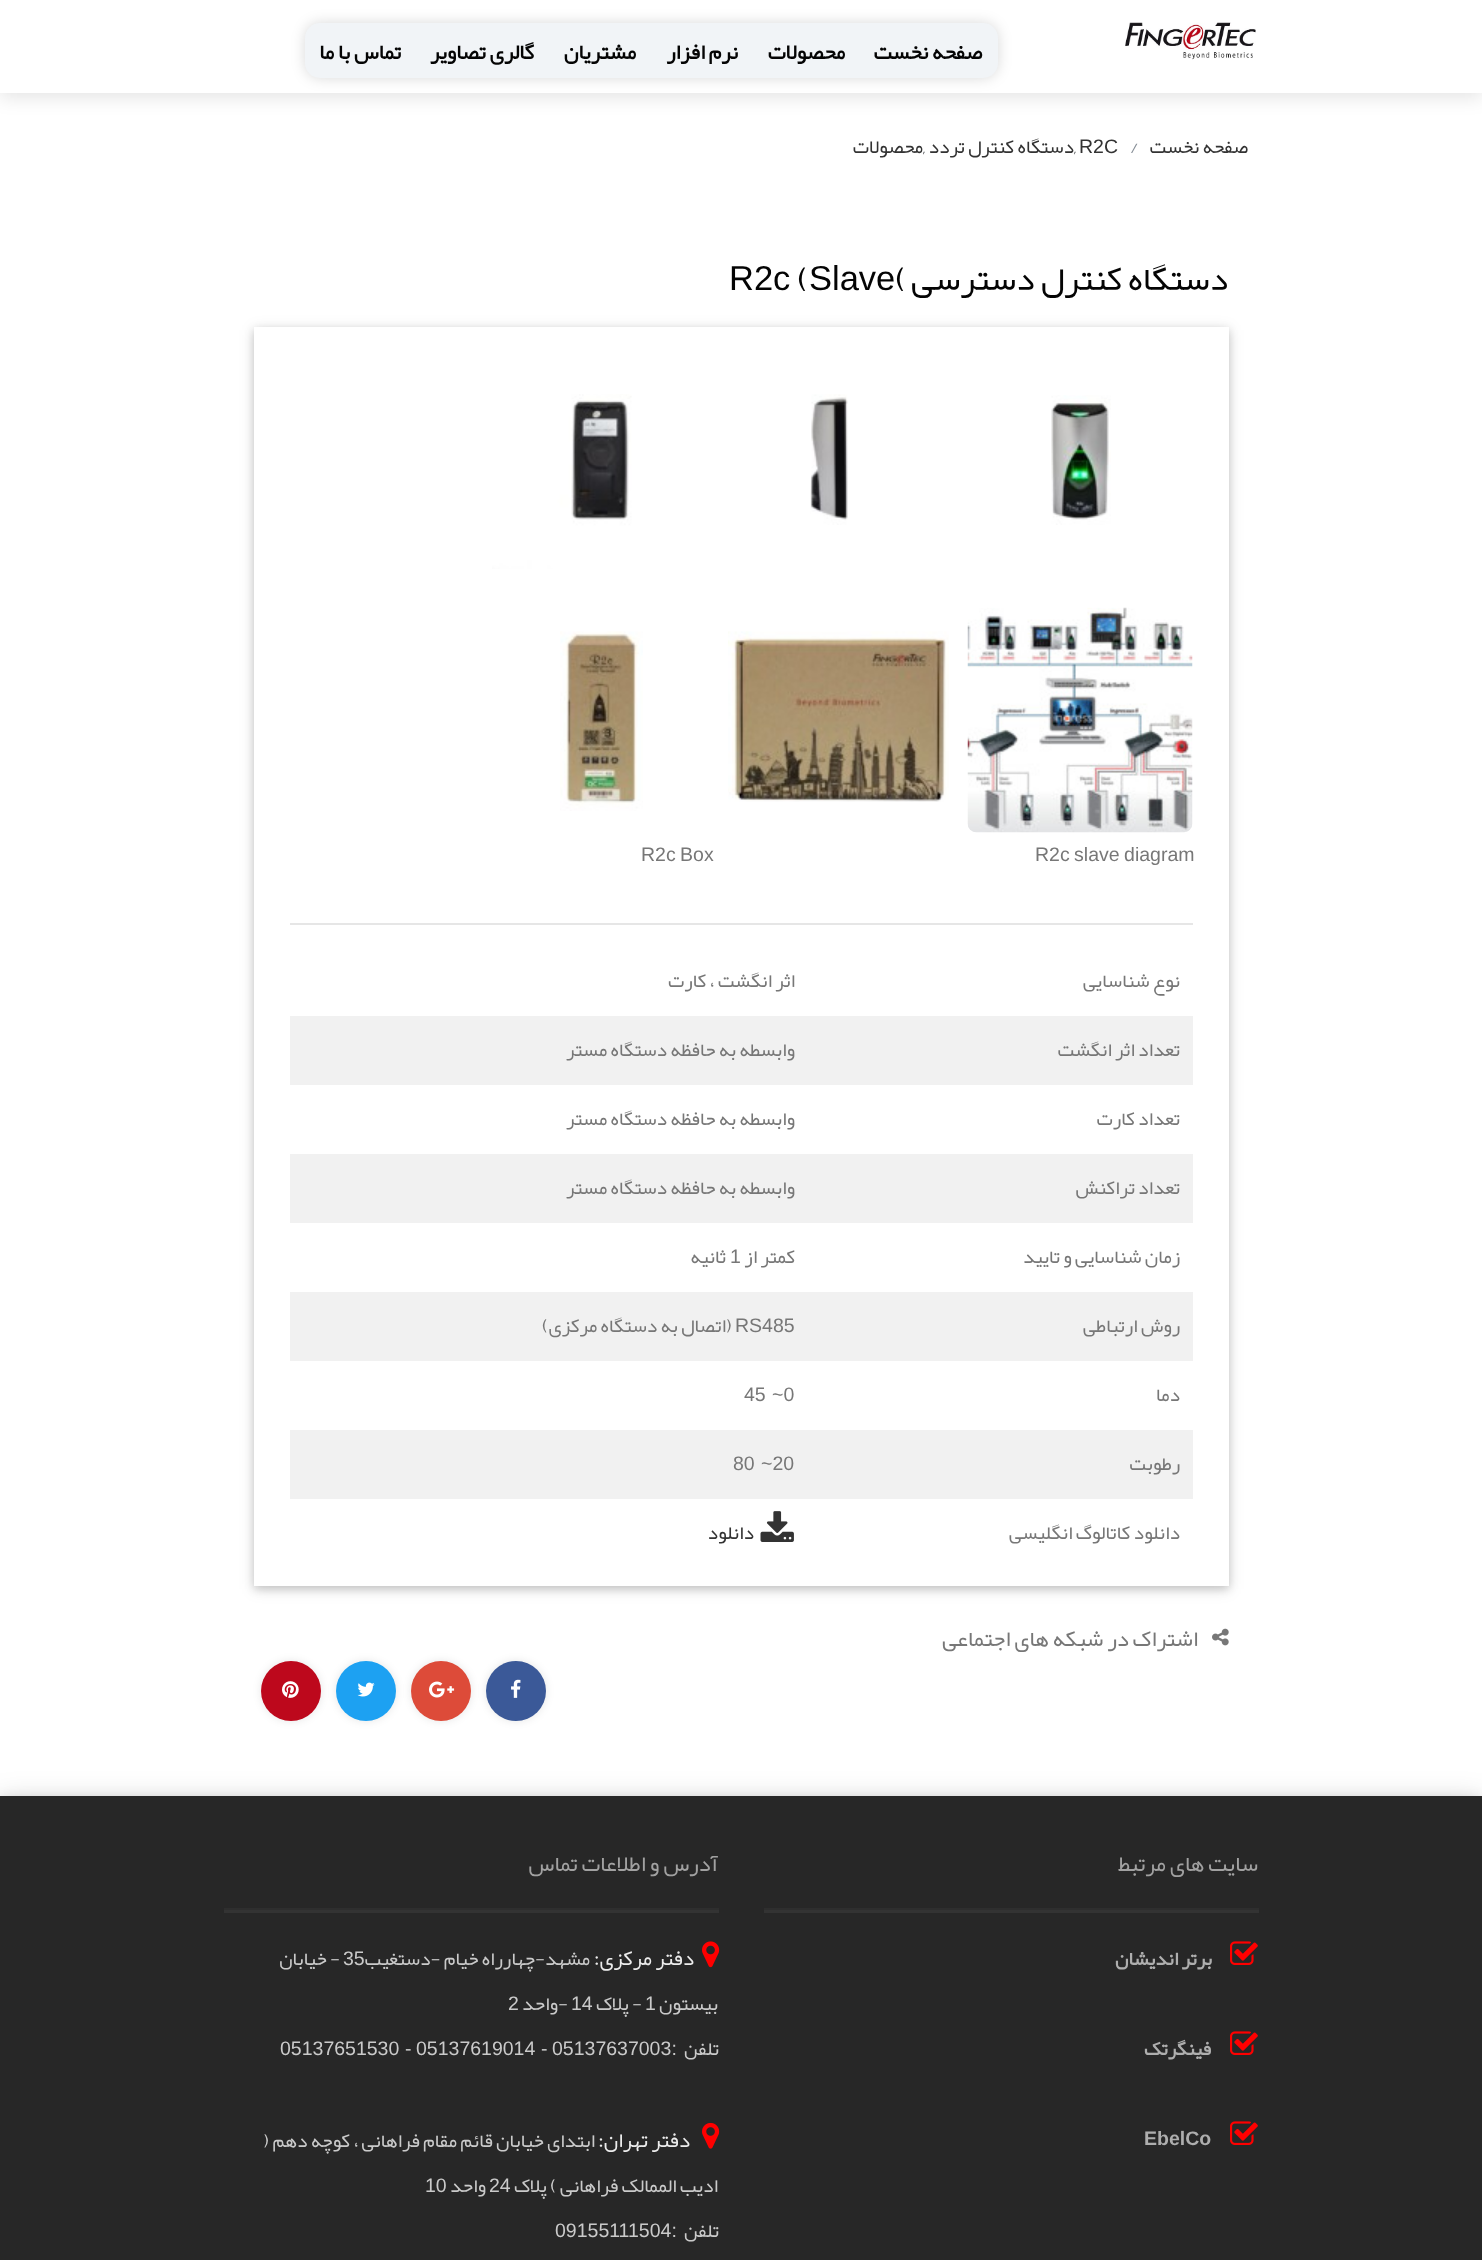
<svg xmlns="http://www.w3.org/2000/svg" width="1482" height="2260">
<defs>
<clipPath id="clip1"><path d="M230 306h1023v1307h-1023zm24 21h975v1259h-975z" clip-rule="evenodd"/></clipPath>
<clipPath id="clip2"><path d="M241 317h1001v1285h-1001zm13 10h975v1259h-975z" clip-rule="evenodd"/></clipPath>
</defs>
<rect width="100%" height="100%" fill="#fff"/>
<rect y="5" width="1482" height="93" fill="#0000001a" filter="blur(9px)"/>
<rect width="1482" height="93" fill="#fff"/>
<image x="1125" y="22" width="131" height="38" href="media/1.png"/>
<rect x="305" y="23" width="693" height="55" rx="15" fill="#00000026" filter="blur(7px)"/>
<rect x="305" y="23" width="693" height="55" rx="15" fill="#f1f4f7"/>
<text x="982" y="59" style="font-family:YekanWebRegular;font-size:21.5px;font-weight:bold;direction:rtl;fill:#040404">صفحه نخست</text>
<text x="845" y="59" style="font-family:YekanWebRegular;font-size:21.5px;font-weight:bold;direction:rtl;fill:#040404">محصولات</text>
<text x="738" y="59" style="font-family:YekanWebRegular;font-size:21.5px;font-weight:bold;direction:rtl;fill:#040404">نرم افزار</text>
<text x="636" y="59" style="font-family:YekanWebRegular;font-size:21.5px;font-weight:bold;direction:rtl;fill:#040404">مشتریان</text>
<text x="534" y="59" style="font-family:YekanWebRegular;font-size:21.5px;font-weight:bold;direction:rtl;fill:#040404">گالری تصاویر</text>
<text x="401" y="59" style="font-family:YekanWebRegular;font-size:21.5px;font-weight:bold;direction:rtl;fill:#040404">تماس با ما</text>
<text x="1248" y="153" style="font-family:YekanWebRegular;font-size:19.5px;direction:rtl;fill:#333">صفحه نخست</text>
<text x="1130" y="153" style="font-family:YekanWebRegular;font-size:19.5px;fill:#868e96">/</text>
<text x="1079" y="153" style="font-family:Liberation Sans;font-size:19.5px;fill:#333">R2C</text>
<text x="1074" y="153" style="font-family:YekanWebRegular;font-size:19.5px;fill:#212529">,</text>
<text x="1074" y="153" style="font-family:YekanWebRegular;font-size:19.5px;direction:rtl;fill:#333">دستگاه کنترل تردد</text>
<text x="923" y="153" style="font-family:YekanWebRegular;font-size:19.5px;fill:#212529">,</text>
<text x="923" y="153" style="font-family:YekanWebRegular;font-size:19.5px;direction:rtl;fill:#333">محصولات</text>
<text x="1228" y="290" style="font-family:YekanWebRegular;font-size:34.5px;direction:rtl;fill:#040404">دستگاه کنترل دسترسی</text>
<text x="895" y="290" style="font-family:YekanWebRegular;font-size:34.5px;fill:#040404">(</text>
<text x="809" y="290" style="font-family:Liberation Sans;font-size:34.5px;fill:#040404">Slave</text>
<text x="797" y="290" style="font-family:YekanWebRegular;font-size:34.5px;fill:#040404">(</text>
<text x="729" y="290" style="font-family:Liberation Sans;font-size:34.5px;fill:#040404">R2c</text>
<g clip-path="url(#clip1)">
<rect x="254" y="330" width="975" height="1259" fill="#0000001f" filter="blur(7.5px)"/>
</g>
<g clip-path="url(#clip2)">
<rect x="254" y="330" width="975" height="1259" fill="#00000029" filter="blur(4px)"/>
</g>
<image x="1051" y="395" width="60" height="130" href="media/2.png"/>
<image x="810" y="394" width="38" height="131" href="media/3.png"/>
<image x="492" y="394" width="140" height="175" href="media/4.png"/>
<image x="728" y="631" width="221" height="171" href="media/5.png"/>
<image x="967" y="607" width="226" height="226" href="media/6.png"/>
<text x="1035" y="861" word-spacing="-1" style="font-family:Liberation Sans;font-size:19.5px;fill:#777">R2c slave diagram</text>
<image x="560" y="631" width="83" height="180" href="media/7.png"/>
<text x="641" y="861" word-spacing="-1" style="font-family:Liberation Sans;font-size:19.5px;fill:#777">R2c Box</text>
<rect x="290" y="923" width="903" height="2" fill="#e6e6e6"/>
<text x="1180" y="987" style="font-family:YekanWebRegular;font-size:19.5px;direction:rtl;fill:#777">نوع شناسایی</text>
<text x="795" y="987" style="font-family:YekanWebRegular;font-size:19.5px;direction:rtl;fill:#777">اثر انگشت ، کارت</text>
<rect x="290" y="1016" width="903" height="69" fill="#f1f1f1"/>
<text x="1180" y="1056" style="font-family:YekanWebRegular;font-size:19.5px;direction:rtl;fill:#777">تعداد اثر انگشت</text>
<text x="795" y="1056" style="font-family:YekanWebRegular;font-size:19.5px;direction:rtl;fill:#777">وابسطه به حافظه دستگاه مستر</text>
<text x="1180" y="1125" style="font-family:YekanWebRegular;font-size:19.5px;direction:rtl;fill:#777">تعداد کارت</text>
<text x="795" y="1125" style="font-family:YekanWebRegular;font-size:19.5px;direction:rtl;fill:#777">وابسطه به حافظه دستگاه مستر</text>
<rect x="290" y="1154" width="903" height="69" fill="#f1f1f1"/>
<text x="1180" y="1194" style="font-family:YekanWebRegular;font-size:19.5px;direction:rtl;fill:#777">تعداد تراکنش</text>
<text x="795" y="1194" style="font-family:YekanWebRegular;font-size:19.5px;direction:rtl;fill:#777">وابسطه به حافظه دستگاه مستر</text>
<text x="1180" y="1263" style="font-family:YekanWebRegular;font-size:19.5px;direction:rtl;fill:#777">زمان شناسایی و تایید</text>
<text x="795" y="1263" style="font-family:YekanWebRegular;font-size:19.5px;direction:rtl;fill:#777">کمتر از</text>
<text x="730" y="1263" style="font-family:Liberation Sans;font-size:19.5px;fill:#777">1</text>
<text x="726" y="1263" style="font-family:YekanWebRegular;font-size:19.5px;direction:rtl;fill:#777">ثانیه</text>
<rect x="290" y="1292" width="903" height="69" fill="#f1f1f1"/>
<text x="1180" y="1332" style="font-family:YekanWebRegular;font-size:19.5px;direction:rtl;fill:#777">روش ارتباطی</text>
<text x="735" y="1332" style="font-family:Liberation Sans;font-size:19.5px;fill:#777">RS485</text>
<text x="732" y="1332" style="font-family:YekanWebRegular;font-size:19.5px;direction:rtl;fill:#777">(اتصال به دستگاه مرکزی)</text>
<text x="1180" y="1401" style="font-family:YekanWebRegular;font-size:19.5px;direction:rtl;fill:#777">دما</text>
<text x="772" y="1401" style="font-family:Liberation Sans;font-size:19.5px;fill:#777">~0</text>
<text x="744" y="1401" style="font-family:Liberation Sans;font-size:19.5px;fill:#777">45</text>
<rect x="290" y="1430" width="903" height="69" fill="#f1f1f1"/>
<text x="1180" y="1470" style="font-family:YekanWebRegular;font-size:19.5px;direction:rtl;fill:#777">رطوبت</text>
<text x="761" y="1470" style="font-family:Liberation Sans;font-size:19.5px;fill:#777">~20</text>
<text x="733" y="1470" style="font-family:Liberation Sans;font-size:19.5px;fill:#777">80</text>
<text x="1180" y="1539" style="font-family:YekanWebRegular;font-size:19.5px;direction:rtl;fill:#777">دانلود کاتالوگ انگلیسی</text>
<image x="760" y="1511" width="34" height="31" href="media/8.png"/>
<text x="754" y="1539" style="font-family:YekanWebRegular;font-size:19.5px;direction:rtl;fill:#333">دانلود</text>
<image x="1212" y="1628" width="17" height="18" href="media/9.png"/>
<text x="1198" y="1646" style="font-family:YekanWebRegular;font-size:22.5px;direction:rtl;fill:#777">اشتراک در شبکه های اجتماعی</text>
<rect x="486" y="1661" width="60" height="60" rx="30" fill="#0000001a" filter="blur(4.5px)"/>
<circle cx="516" cy="1691" r="30" fill="#3b5998"/>
<image x="511" y="1679" width="10" height="19" href="media/10.png"/>
<rect x="411" y="1661" width="60" height="60" rx="30" fill="#0000001a" filter="blur(4.5px)"/>
<circle cx="441" cy="1691" r="30" fill="#dd4b39"/>
<image x="429" y="1681" width="26" height="17" href="media/11.png"/>
<rect x="336" y="1661" width="60" height="60" rx="30" fill="#0000001a" filter="blur(4.5px)"/>
<circle cx="366" cy="1691" r="30" fill="#1da1f2"/>
<image x="357" y="1682" width="18" height="15" href="media/12.png"/>
<rect x="261" y="1661" width="60" height="60" rx="30" fill="#0000001a" filter="blur(4.5px)"/>
<circle cx="291" cy="1691" r="30" fill="#bd081c"/>
<image x="282" y="1681" width="17" height="17" href="media/13.png"/>
<rect y="1802" width="1482" height="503" fill="#00000030" filter="blur(15px)"/>
<rect y="1802" width="1482" height="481" fill="#00000033" filter="blur(7.5px)"/>
<rect y="1796" width="1482" height="464" fill="#272727"/>
<text x="1258" y="1871" style="font-family:YekanWebRegular;font-size:22.5px;direction:rtl;fill:#a1a1a1">سایت های مرتبط</text>
<rect x="764" y="1910" width="495" height="3" fill="#333"/>
<rect x="764" y="1908" width="495" height="2" fill="#2e2e2e"/>
<image x="1230" y="1941" width="28" height="24" href="media/14.png"/>
<text x="1212" y="1965" style="font-family:YekanWebRegular;font-size:19.5px;font-weight:bold;direction:rtl;fill:#aeaeae">برتر اندیشان</text>
<image x="1230" y="2031" width="28" height="24" href="media/14.png"/>
<text x="1211" y="2055" style="font-family:YekanWebRegular;font-size:19.5px;font-weight:bold;direction:rtl;fill:#aeaeae">فینگرتک</text>
<image x="1230" y="2121" width="28" height="24" href="media/14.png"/>
<text x="1144" y="2145" style="font-family:Liberation Sans;font-size:19.5px;font-weight:bold;fill:#aeaeae">EbelCo</text>
<text x="718" y="1871" style="font-family:YekanWebRegular;font-size:22.5px;direction:rtl;fill:#a1a1a1">آدرس و اطلاعات تماس</text>
<rect x="224" y="1910" width="495" height="3" fill="#333"/>
<rect x="224" y="1908" width="495" height="2" fill="#2e2e2e"/>
<image x="702" y="1941" width="18" height="27" href="media/15.png"/>
<text x="694" y="1965" style="font-family:YekanWebRegular;font-size:21px;direction:rtl;fill:#ececec">دفتر مرکزی:</text>
<text x="590" y="1965" style="font-family:YekanWebRegular;font-size:19.5px;direction:rtl;fill:#cacaca">مشهد-چهارراه خیام -دستغیب</text>
<text x="343" y="1965" style="font-family:Liberation Sans;font-size:19.5px;fill:#cacaca">35</text>
<text x="340" y="1965" style="font-family:YekanWebRegular;font-size:19.5px;direction:rtl;fill:#cacaca">- خیابان</text>
<text x="718" y="2010" style="font-family:YekanWebRegular;font-size:19.5px;direction:rtl;fill:#cacaca">بیستون</text>
<text x="645" y="2010" style="font-family:Liberation Sans;font-size:19.5px;fill:#cacaca">1</text>
<text x="642" y="2010" style="font-family:YekanWebRegular;font-size:19.5px;direction:rtl;fill:#cacaca">- پلاک</text>
<text x="571" y="2010" style="font-family:Liberation Sans;font-size:19.5px;fill:#cacaca">14</text>
<text x="568" y="2010" style="font-family:YekanWebRegular;font-size:19.5px;direction:rtl;fill:#cacaca">-واحد</text>
<text x="508" y="2010" style="font-family:Liberation Sans;font-size:19.5px;fill:#cacaca">2</text>
<text x="719" y="2055" style="font-family:YekanWebRegular;font-size:19.5px;direction:rtl;fill:#cacaca">تلفن</text>
<text x="677" y="2055" style="font-family:Liberation Sans;font-size:19.5px;direction:rtl;fill:#cacaca">:</text>
<text x="552" y="2055" style="font-family:Liberation Sans;font-size:19.5px;fill:#cacaca">05137637003</text>
<text x="541" y="2055" style="font-family:Liberation Sans;font-size:19.5px;fill:#cacaca">-</text>
<text x="416" y="2055" style="font-family:Liberation Sans;font-size:19.5px;fill:#cacaca">05137619014</text>
<text x="405" y="2055" style="font-family:Liberation Sans;font-size:19.5px;fill:#cacaca">-</text>
<text x="280" y="2055" style="font-family:Liberation Sans;font-size:19.5px;fill:#cacaca">05137651530</text>
<image x="702" y="2122" width="18" height="27" href="media/16.png"/>
<text x="690" y="2147" style="font-family:YekanWebRegular;font-size:21px;direction:rtl;fill:#ececec">دفتر تهران:</text>
<text x="595" y="2147" style="font-family:YekanWebRegular;font-size:19.5px;direction:rtl;fill:#cacaca">ابتدای خیابان قائم مقام فراهانی ، کوچه دهم (</text>
<text x="718" y="2192" style="font-family:YekanWebRegular;font-size:19.5px;direction:rtl;fill:#cacaca">ادیب الممالک فراهانی ) پلاک</text>
<text x="489" y="2192" style="font-family:Liberation Sans;font-size:19.5px;fill:#cacaca">24</text>
<text x="486" y="2192" style="font-family:YekanWebRegular;font-size:19.5px;direction:rtl;fill:#cacaca">واحد</text>
<text x="425" y="2192" style="font-family:Liberation Sans;font-size:19.5px;fill:#cacaca">10</text>
<text x="719" y="2237" style="font-family:YekanWebRegular;font-size:19.5px;direction:rtl;fill:#cacaca">تلفن</text>
<text x="677" y="2237" style="font-family:Liberation Sans;font-size:19.5px;direction:rtl;fill:#cacaca">:</text>
<text x="555" y="2237" style="font-family:Liberation Sans;font-size:19.5px;fill:#cacaca">09155111504</text>
</svg>
